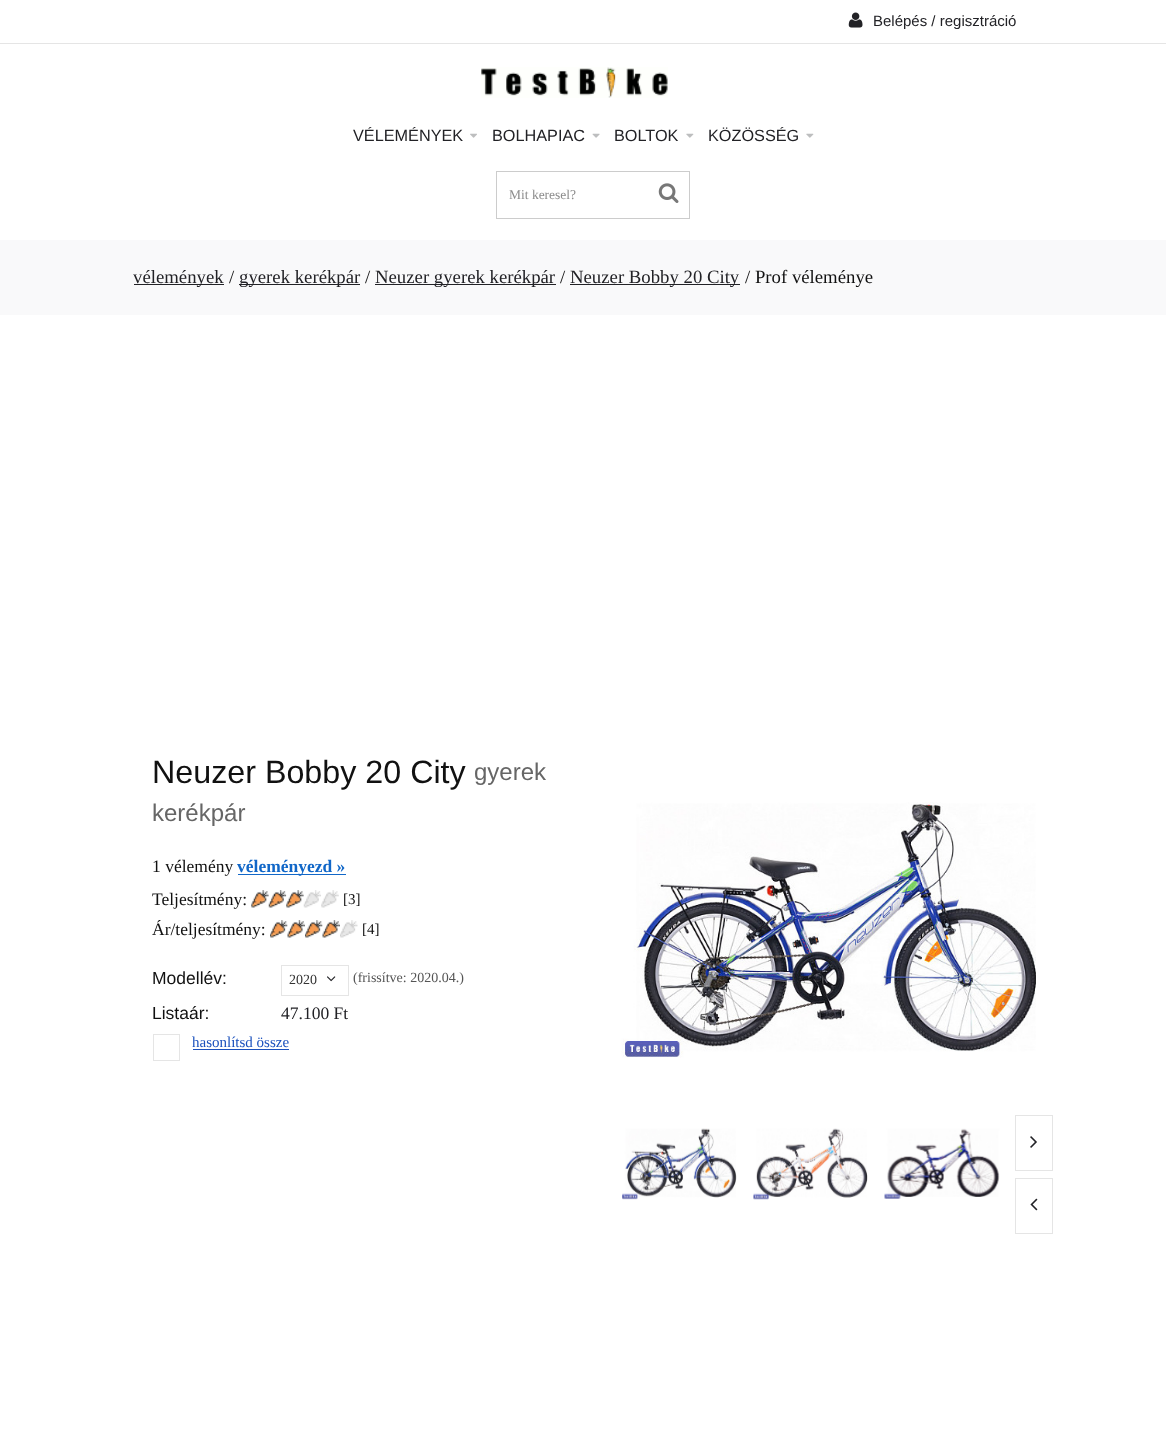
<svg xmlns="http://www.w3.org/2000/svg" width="1166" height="1451">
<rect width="100%" height="100%" fill="#fff"/>
<image x="848" y="12" width="15" height="16" href="media/1.png"/>
<text x="873" y="26" style="font-family:Liberation Sans;font-size:15px;fill:#222226">Belépés / regisztráció</text>
<rect y="43" width="1166" height="1" fill="#e5e5e5"/>
<image x="481" y="67" width="187" height="31" href="media/2.png"/>
<text x="353" y="141" style="font-family:Liberation Sans;font-size:16.25px;fill:#222226">VÉLEMÉNYEK</text>
<image x="470" y="133" width="7" height="5" href="media/3.png"/>
<text x="492" y="141" style="font-family:Liberation Sans;font-size:16.25px;fill:#222226">BOLHAPIAC</text>
<image x="592" y="133" width="8" height="5" href="media/4.png"/>
<text x="614" y="141" style="font-family:Liberation Sans;font-size:16.25px;fill:#222226">BOLTOK</text>
<image x="686" y="133" width="8" height="5" href="media/5.png"/>
<text x="708" y="141" style="font-family:Liberation Sans;font-size:16.25px;fill:#222226">KÖZÖSSÉG</text>
<image x="806" y="133" width="8" height="5" href="media/5.png"/>
<rect x="496.5" y="171.5" width="193" height="47" fill="none" stroke="#ccc"/>
<text x="509" y="199" style="font-family:Liberation Serif;font-size:13.5px;fill:#8c8c8c">Mit keresel?</text>
<image x="658" y="183" width="21" height="20" href="media/6.png"/>
<rect y="240" width="1166" height="75" fill="#f9f9fa"/>
<rect x="134" y="284" width="90" height="1" fill="#222226"/>
<text x="133" y="283" style="font-family:Liberation Serif;font-size:18.75px;fill:#222226">vélemények</text>
<text x="229" y="283" style="font-family:Liberation Serif;font-size:18.75px;fill:#111">/</text>
<rect x="239" y="284" width="121" height="1" fill="#222226"/>
<text x="239" y="283" style="font-family:Liberation Serif;font-size:18.75px;fill:#222226">gyerek kerékpár</text>
<text x="365" y="283" style="font-family:Liberation Serif;font-size:18.75px;fill:#111">/</text>
<rect x="375" y="284" width="181" height="1" fill="#222226"/>
<text x="375" y="283" style="font-family:Liberation Serif;font-size:18.75px;fill:#222226">Neuzer gyerek kerékpár</text>
<text x="560" y="283" style="font-family:Liberation Serif;font-size:18.75px;fill:#111">/</text>
<rect x="570" y="284" width="170" height="1" fill="#222226"/>
<text x="570" y="283" style="font-family:Liberation Serif;font-size:18.75px;fill:#222226">Neuzer Bobby 20 City</text>
<text x="745" y="283" style="font-family:Liberation Serif;font-size:18.75px;fill:#111">/ Prof véleménye</text>
<text x="152" y="783" style="font-family:Liberation Sans;font-size:32.25px;fill:#111">Neuzer Bobby 20 City</text>
<text x="474" y="780" style="font-family:Liberation Sans;font-size:24px;fill:#666">gyerek</text>
<text x="152" y="821" style="font-family:Liberation Sans;font-size:24px;fill:#666">kerékpár</text>
<text x="152" y="872" style="font-family:Liberation Serif;font-size:17.5px;fill:#111">1 vélemény</text>
<rect x="238" y="874" width="108" height="1" fill="#1167c8"/>
<text x="237" y="872" style="font-family:Liberation Serif;font-size:17.5px;font-weight:bold;fill:#1167c8">véleményezd »</text>
<text x="152" y="905" style="font-family:Liberation Serif;font-size:17.5px;fill:#111">Teljesítmény:</text>
<image x="251" y="890" width="18" height="18" href="media/7.png"/>
<image x="268" y="890" width="19" height="18" href="media/8.png"/>
<image x="286" y="890" width="18" height="18" href="media/9.png"/>
<image x="303" y="890" width="19" height="18" href="media/10.png"/>
<image x="321" y="890" width="18" height="18" href="media/11.png"/>
<text x="343" y="904" style="font-family:Liberation Serif;font-size:15px;fill:#111">[3]</text>
<text x="152" y="935" style="font-family:Liberation Serif;font-size:17.5px;fill:#111">Ár/teljesítmény:</text>
<image x="270" y="920" width="18" height="18" href="media/12.png"/>
<image x="287" y="920" width="18" height="18" href="media/13.png"/>
<image x="305" y="920" width="18" height="18" href="media/12.png"/>
<image x="322" y="920" width="18" height="18" href="media/13.png"/>
<image x="340" y="920" width="18" height="18" href="media/14.png"/>
<text x="362" y="934" style="font-family:Liberation Serif;font-size:15px;fill:#111">[4]</text>
<text x="152" y="984" style="font-family:Liberation Sans;font-size:17.5px;fill:#111">Modellév:</text>
<rect x="281.5" y="965.5" width="67" height="30" fill="none" stroke="#e5e5e5"/>
<text x="289" y="984" style="font-family:Liberation Serif;font-size:14px;fill:#333">2020</text>
<image x="327" y="976" width="9" height="6" href="media/15.png"/>
<text x="353" y="982" style="font-family:Liberation Serif;font-size:14px;fill:#555">(frissítve: 2020.04.)</text>
<text x="152" y="1019" style="font-family:Liberation Sans;font-size:17.5px;fill:#111">Listaár:</text>
<text x="281" y="1019" style="font-family:Liberation Serif;font-size:17.5px;fill:#222226">47.100 Ft</text>
<rect x="153.5" y="1034.5" width="26" height="26" fill="none" stroke="#e5e5e5"/>
<text x="192" y="1047" style="font-family:Liberation Serif;font-size:15px;fill:#1b51bd">hasonlítsd össze</text>
<rect x="193" y="1049" width="96" height="1" fill="#1b51bd"/>
<image x="621" y="802" width="415" height="256" href="media/16.png"/>
<image x="622" y="1128" width="115" height="72" href="media/17.png"/>
<image x="753" y="1128" width="115" height="72" href="media/18.png"/>
<image x="884" y="1128" width="116" height="71" href="media/19.png"/>
<rect x="1015.5" y="1115.5" width="37" height="55" fill="none" stroke="#e5e5e5"/>
<image x="1030" y="1136" width="7" height="12" href="media/20.png"/>
<rect x="1015.5" y="1178.5" width="37" height="55" fill="none" stroke="#e5e5e5"/>
<image x="1030" y="1198" width="8" height="13" href="media/21.png"/>
</svg>
